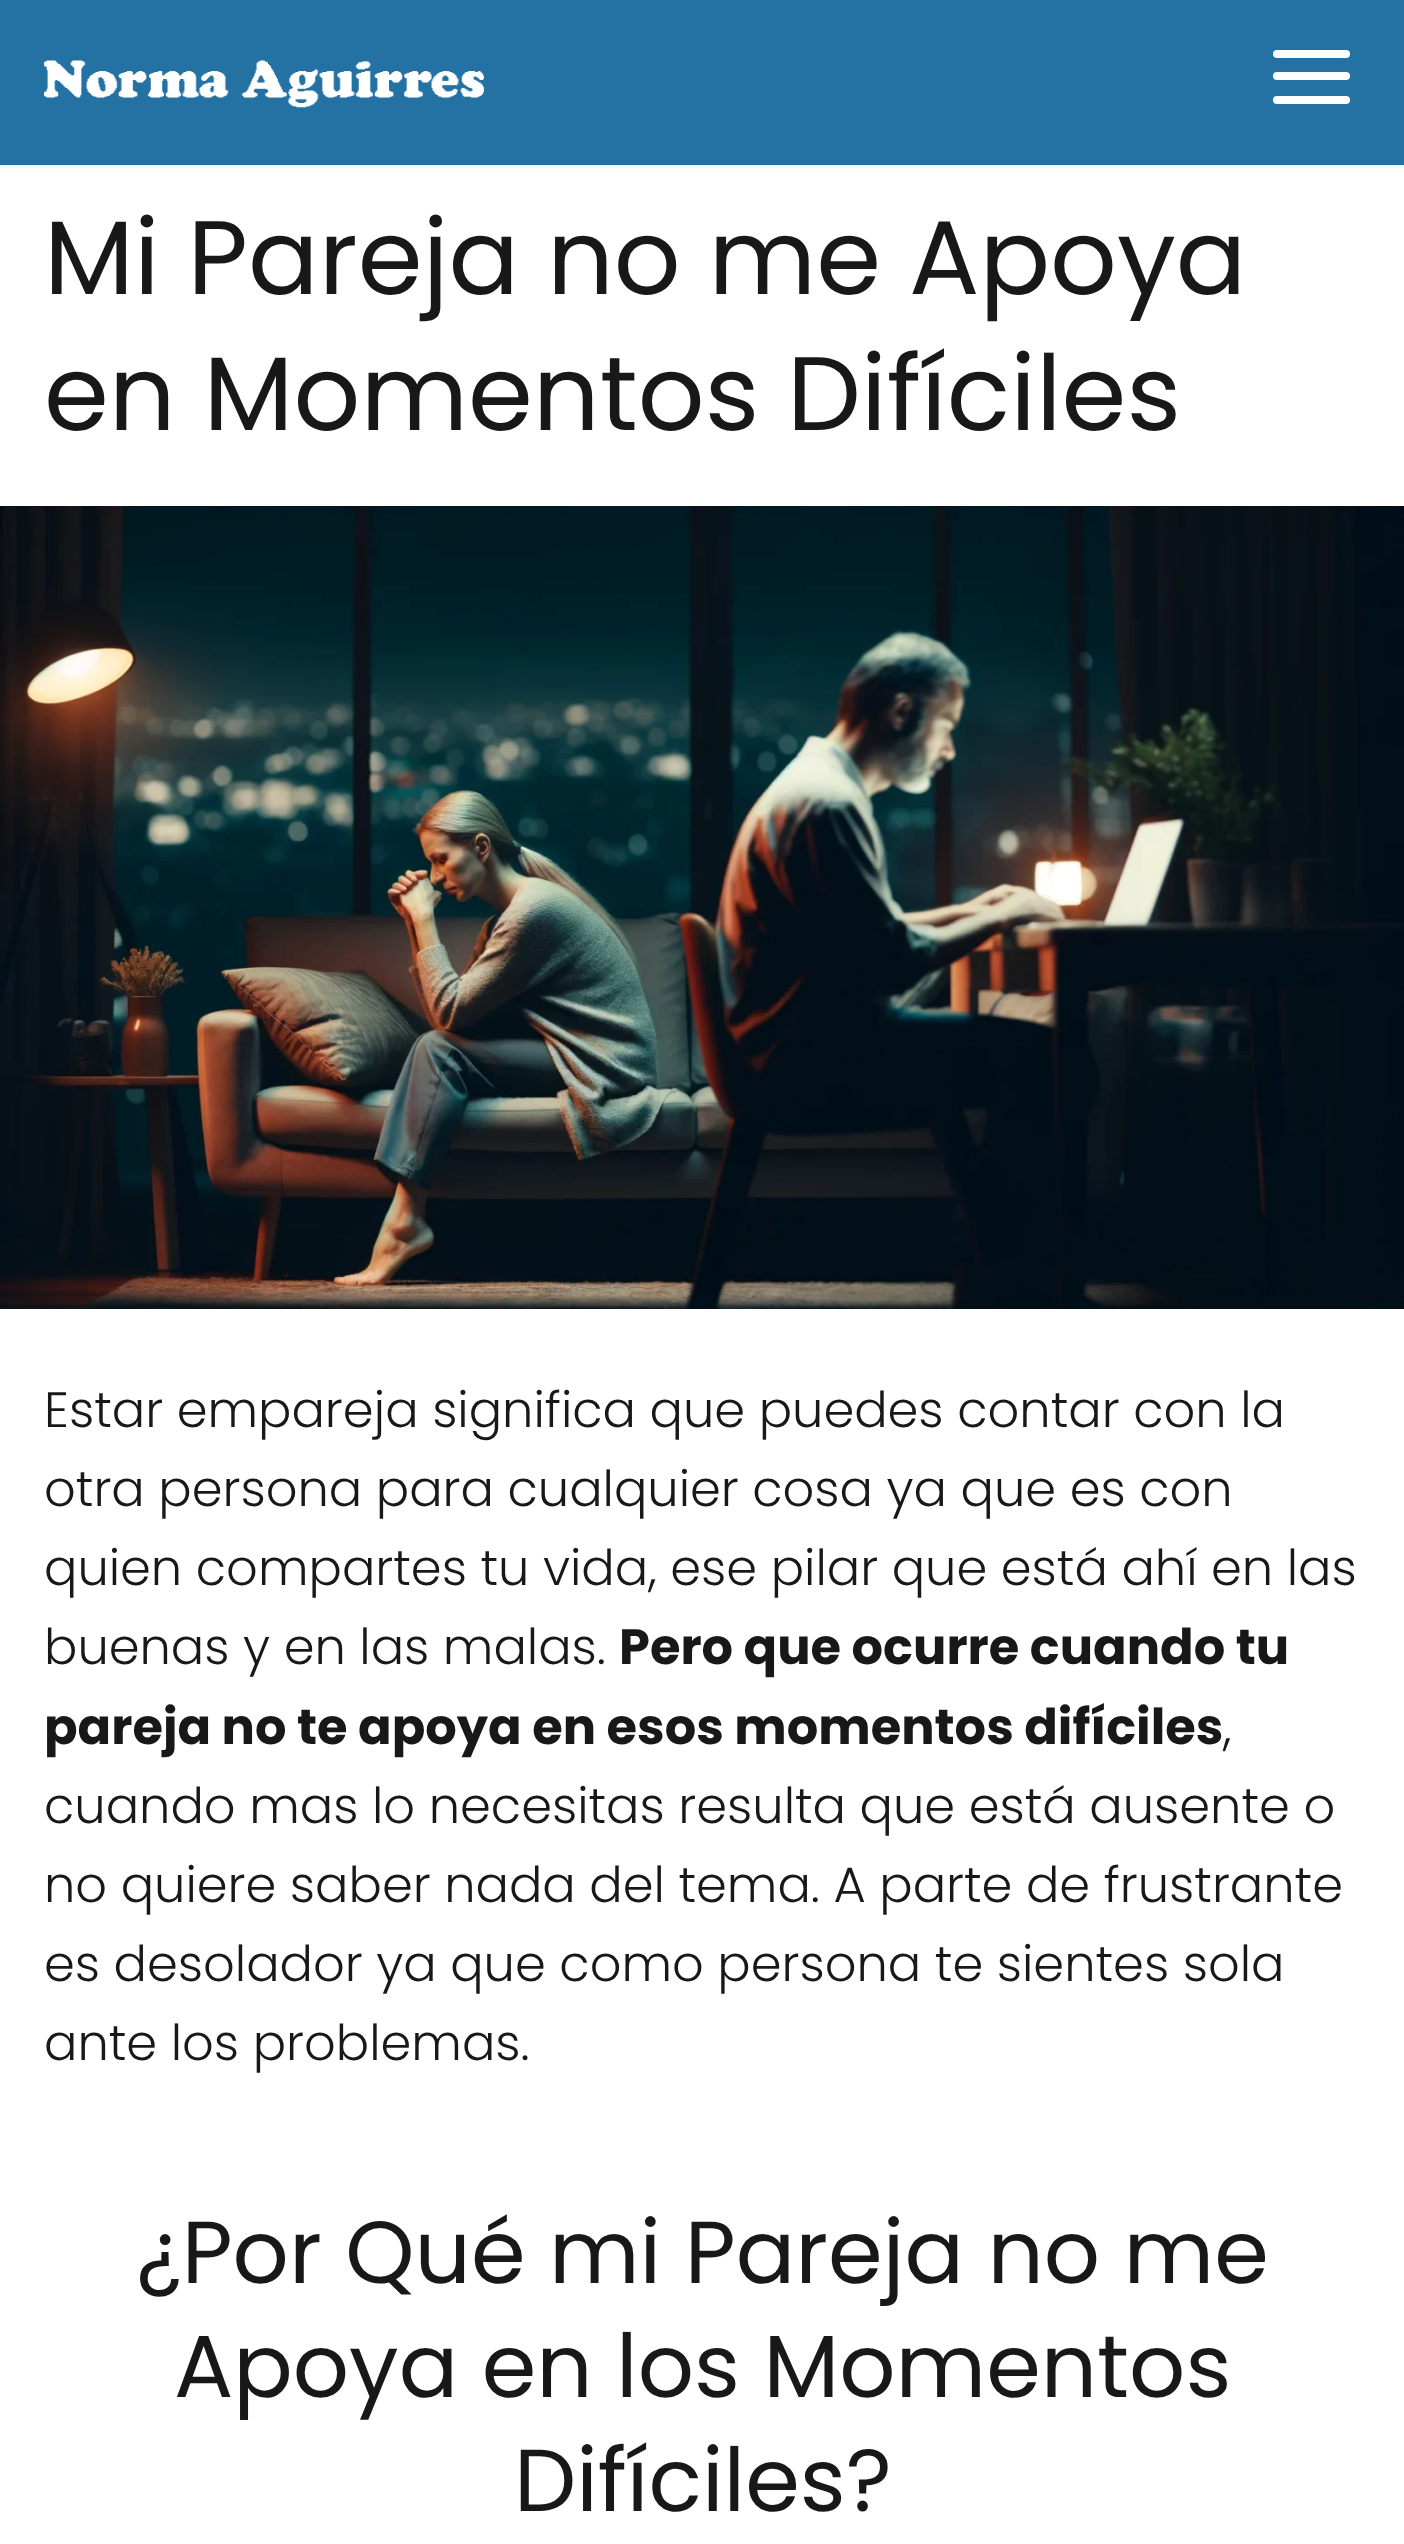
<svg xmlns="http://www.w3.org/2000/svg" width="1404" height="2544">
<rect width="100%" height="100%" fill="#fff"/>
<rect width="1404" height="165" fill="#2471a3"/>
<image x="44" y="60" width="440" height="48" href="media/1.png"/>
<rect x="1273" y="50" width="77" height="8" rx="4" fill="#fff"/>
<rect x="1273" y="72" width="77" height="8" rx="4" fill="#fff"/>
<rect x="1273" y="96" width="77" height="8" rx="4" fill="#fff"/>
<text x="44" y="294" style="font-family:Poppins;font-size:104.5px;fill:#181818">Mi Pareja no me Apoya</text>
<text x="44" y="430" style="font-family:Poppins;font-size:104.5px;fill:#181818">en Momentos Difíciles</text>
<image x="0" y="506" width="1404" height="803" href="media/2.png"/>
<text x="44" y="1427" style="font-family:Poppins;font-size:49.5px;font-weight:300;fill:#181818">Estar empareja significa que puedes contar con la</text>
<text x="44" y="1506" style="font-family:Poppins;font-size:49.5px;font-weight:300;fill:#181818">otra persona para cualquier cosa ya que es con</text>
<text x="44" y="1585" style="font-family:Poppins;font-size:49.5px;font-weight:300;fill:#181818">quien compartes tu vida, ese pilar que está ahí en las</text>
<text x="44" y="1664" style="font-family:Poppins;font-size:49.5px;font-weight:300;fill:#181818">buenas y en las malas.</text>
<text x="619" y="1664" style="font-family:Poppins;font-size:49.5px;font-weight:bold;fill:#181818">Pero que ocurre cuando tu</text>
<text x="44" y="1744" style="font-family:Poppins;font-size:49.5px;font-weight:bold;fill:#181818">pareja no te apoya en esos momentos difíciles</text>
<text x="1223" y="1744" style="font-family:Poppins;font-size:49.5px;font-weight:300;fill:#181818">,</text>
<text x="44" y="1823" style="font-family:Poppins;font-size:49.5px;font-weight:300;fill:#181818">cuando mas lo necesitas resulta que está ausente o</text>
<text x="44" y="1902" style="font-family:Poppins;font-size:49.5px;font-weight:300;fill:#181818">no quiere saber nada del tema. A parte de frustrante</text>
<text x="44" y="1981" style="font-family:Poppins;font-size:49.5px;font-weight:300;fill:#181818">es desolador ya que como persona te sientes sola</text>
<text x="44" y="2060" style="font-family:Poppins;font-size:49.5px;font-weight:300;fill:#181818">ante los problemas.</text>
<text x="136" y="2283" style="font-family:Poppins;font-size:88px;fill:#181818">¿Por Qué mi Pareja no me</text>
<text x="174" y="2397" style="font-family:Poppins;font-size:88px;fill:#181818">Apoya en los Momentos</text>
<text x="514" y="2511" style="font-family:Poppins;font-size:88px;fill:#181818">Difíciles?</text>
</svg>
